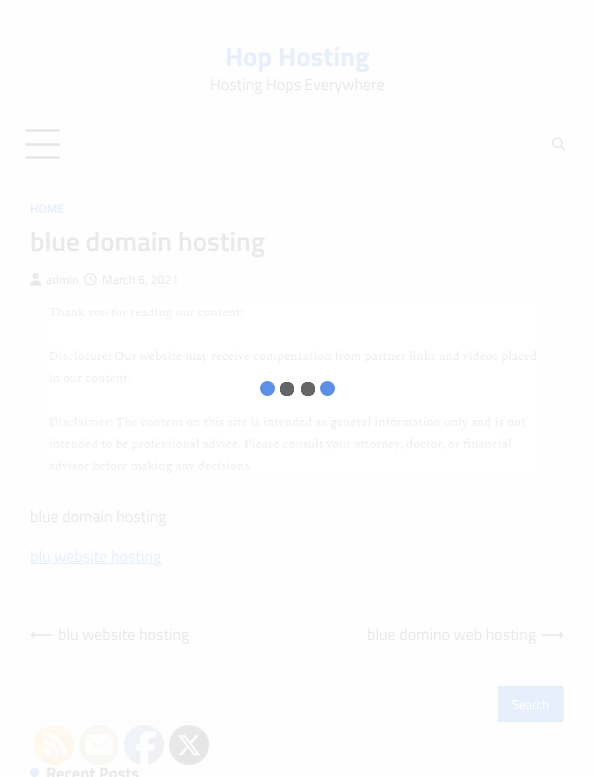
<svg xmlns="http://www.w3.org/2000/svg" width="594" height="777">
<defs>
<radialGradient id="g1" gradientUnits="userSpaceOnUse" cx="308" cy="389" r="7.5"><stop offset="0.95" stop-color="#646567"/><stop offset="1" stop-color="#fff"/></radialGradient>
<radialGradient id="g2" gradientUnits="userSpaceOnUse" cx="287" cy="389" r="7.5"><stop offset="0.95" stop-color="#646567"/><stop offset="1" stop-color="#fff"/></radialGradient>
</defs>
<rect width="100%" height="100%" fill="#fefefe"/>
<text x="225" y="66" style="font-family:Titillium Web;font-size:27px;font-weight:bold;fill:#e8effc">Hop Hosting</text>
<text x="210" y="90" style="font-family:Titillium Web;font-size:16px;fill:#e9e9e9">Hosting Hops Everywhere</text>
<rect x="25" y="129" width="35" height="3" rx="1.5" fill="#e9e9e9"/>
<rect x="25" y="143" width="35" height="3" rx="1.5" fill="#e9e9e9"/>
<rect x="25" y="156" width="35" height="3" rx="1.5" fill="#e9e9e9"/>
<image x="552" y="137" width="14" height="14" href="media/1.png"/>
<text x="30" y="213" style="font-family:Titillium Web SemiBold;font-size:12.5px;font-weight:600;fill:#e8effc">HOME</text>
<text x="30" y="251" style="font-family:Titillium Web SemiBold;font-size:27px;font-weight:600;fill:#e9e9e9">blue domain hosting</text>
<image x="30" y="272" width="11" height="14" href="media/2.png"/>
<text x="46" y="284" style="font-family:Titillium Web;font-size:12.5px;fill:#e9e9e9">admin</text>
<image x="84" y="272" width="13" height="14" href="media/3.png"/>
<text x="102" y="284" style="font-family:Titillium Web;font-size:12.5px;fill:#e9e9e9">March 6, 2021</text>
<image x="49" y="304" width="489" height="170" href="media/4.png"/>
<text x="30" y="522" style="font-family:Titillium Web;font-size:16px;fill:#e9e9e9">blue domain hosting</text>
<rect x="30" y="563" width="131" height="1" fill="#e8effc"/>
<text x="30" y="562" style="font-family:Titillium Web;font-size:16px;fill:#e8effc">blu website hosting</text>
<text x="30" y="640" style="font-family:DejaVu Sans;font-size:16px;fill:#e9e9e9">⟵</text>
<text x="58" y="640" style="font-family:Titillium Web;font-size:16px;fill:#e9e9e9">blu website hosting</text>
<text x="367" y="640" style="font-family:Titillium Web;font-size:16px;fill:#e9e9e9">blue domino web hosting</text>
<text x="541" y="640" style="font-family:DejaVu Sans;font-size:16px;fill:#e9e9e9">⟶</text>
<path d="M33 686.5h464.5v35h-464.5c-1.5 0-2.5-1-2.5-2.5v-30c0-1.5 1-2.5 2.5-2.5z" fill="none" stroke="#e9e9e926"/>
<path d="M498.5 686.5h62.5c1.5 0 2.5 1 2.5 2.5v30c0 1.5-1 2.5-2.5 2.5h-62.5z" fill="#e8effc" stroke="#e8effc"/>
<text x="512" y="709" style="font-family:Titillium Web;font-size:13px;fill:#fff">Search</text>
<circle cx="34.5" cy="772.5" r="4.5" fill="#e8effc"/>
<text x="46" y="779" style="font-family:Titillium Web;font-size:16.5px;font-weight:bold;fill:#e9e9e9">Recent Posts</text>
<rect x="301" y="382" width="14" height="14" fill="url(#g1)"/>
<rect x="280" y="382" width="14" height="14" fill="url(#g2)"/>
<circle cx="267.5" cy="388.5" r="7.5" fill="#5d8fe9"/>
<circle cx="327.5" cy="388.5" r="7.5" fill="#5d8fe9"/>
<image x="34" y="725" width="40" height="40" href="media/5.png"/>
<image x="79" y="725" width="40" height="40" href="media/6.png"/>
<image x="124" y="725" width="40" height="40" href="media/7.png"/>
<image x="169" y="725" width="40" height="40" href="media/8.png"/>
</svg>
